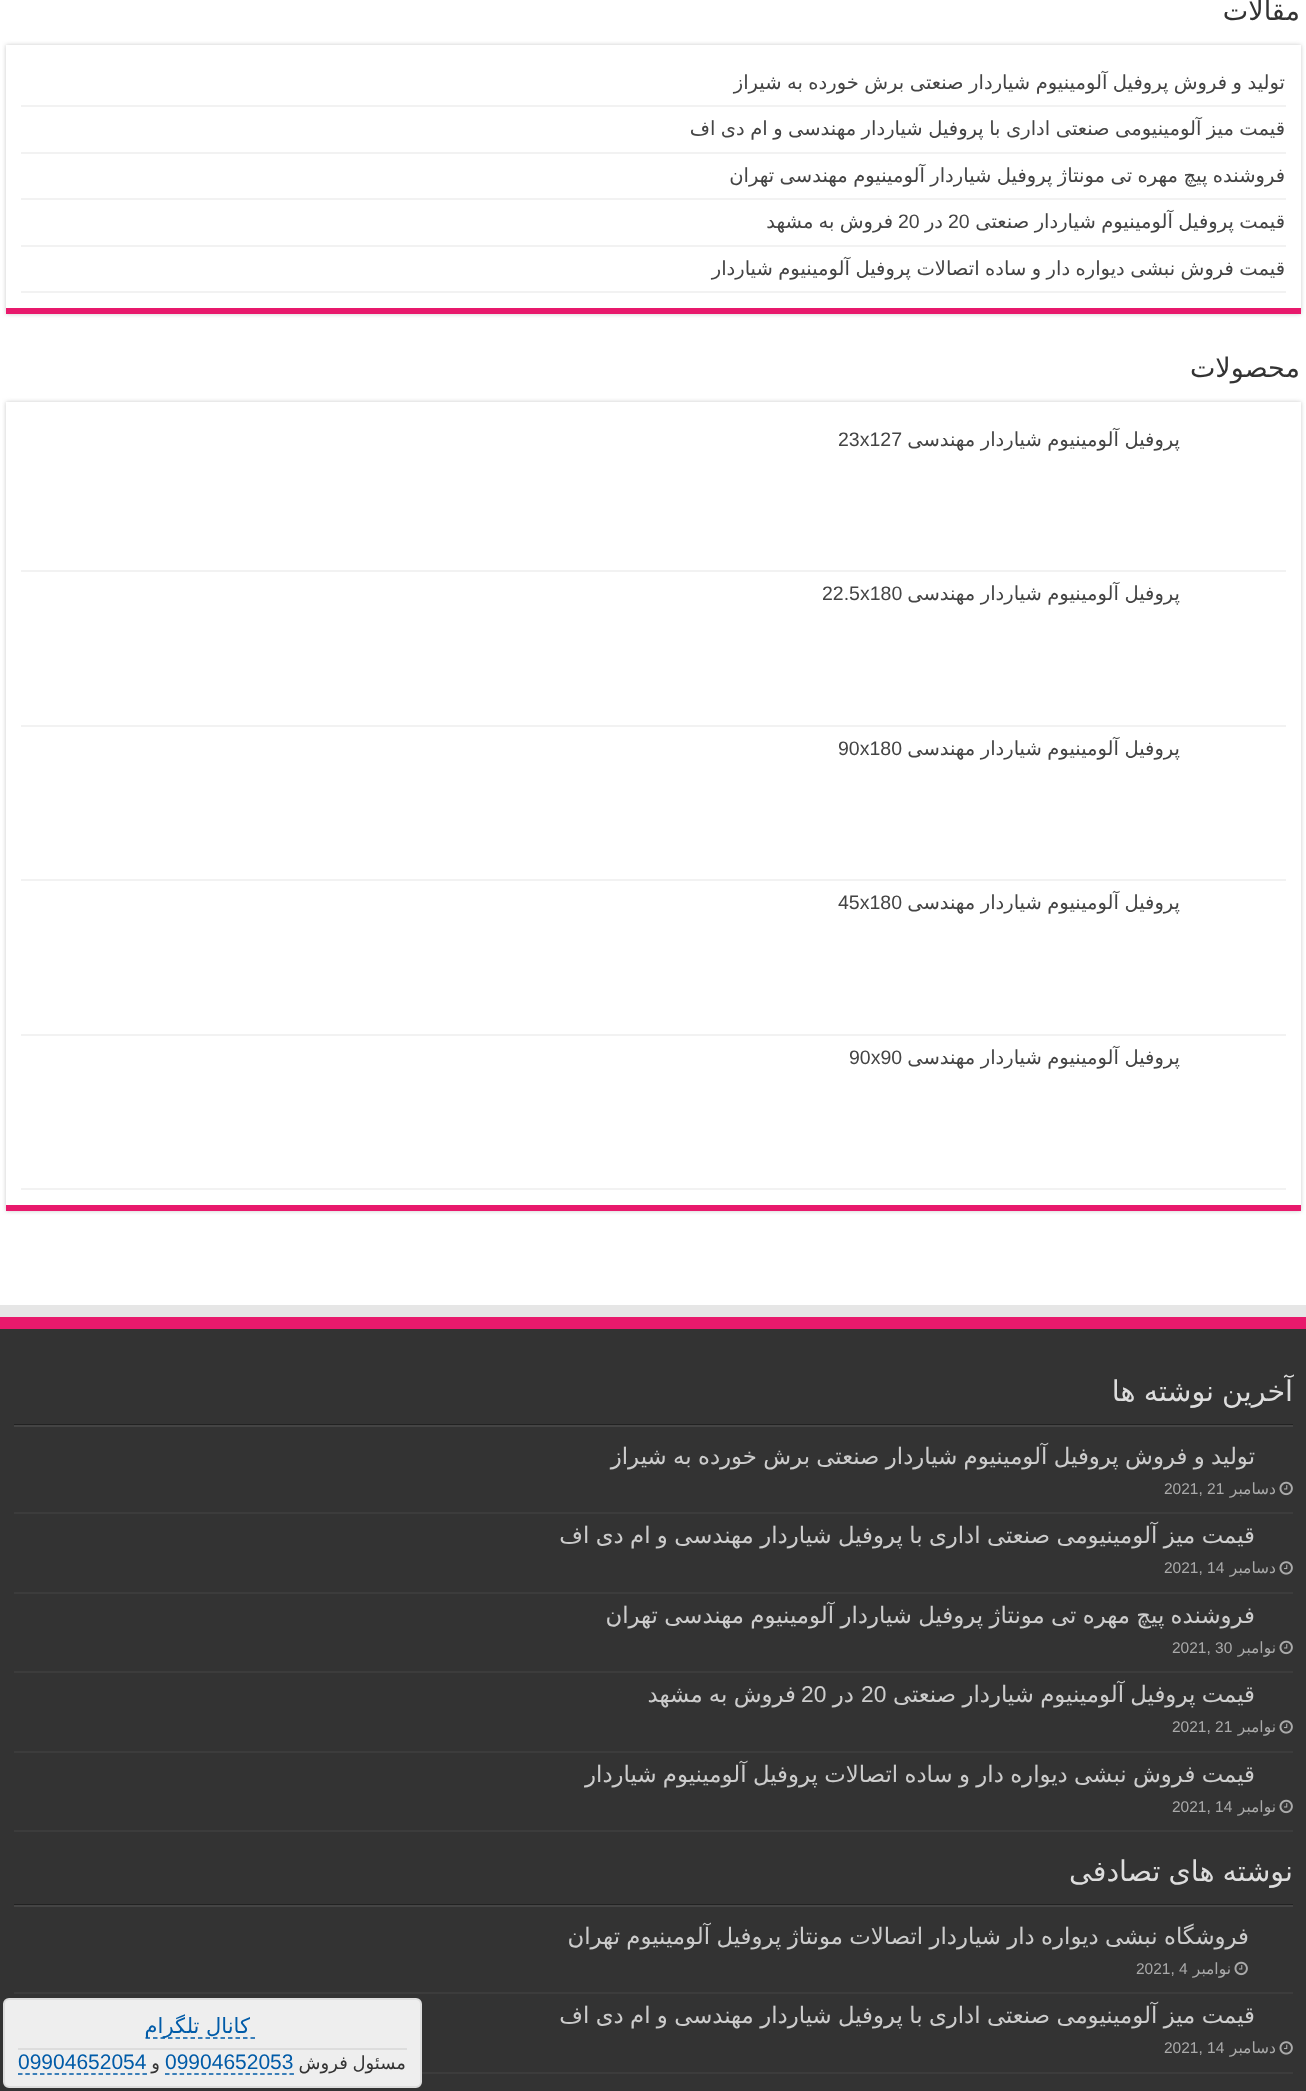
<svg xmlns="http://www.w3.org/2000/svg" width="1306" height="2091">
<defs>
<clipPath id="clip1"><rect x="21" y="60" width="1265" height="45"/></clipPath>
<clipPath id="clip2"><rect x="21" y="107" width="1265" height="45"/></clipPath>
<clipPath id="clip3"><rect x="21" y="153" width="1265" height="45"/></clipPath>
<clipPath id="clip4"><rect x="21" y="200" width="1265" height="45"/></clipPath>
<clipPath id="clip5"><rect x="21" y="246" width="1265" height="45"/></clipPath>
</defs>
<rect width="100%" height="100%" fill="#fff"/>
<text x="1300" y="20" style="font-family:DejaVu Sans;font-size:27px;direction:rtl;fill:#333">مقالات</text>
<rect x="6" y="45" width="1295" height="269" fill="#cacaca" filter="blur(2px)"/>
<rect x="6" y="45" width="1295" height="263" fill="#fff"/>
<rect x="6" y="308" width="1295" height="6" fill="#e8196c"/>
<rect x="21" y="105" width="1265" height="2" fill="#f2f2f2"/>
<g clip-path="url(#clip1)">
<text x="1285" y="89" word-spacing="-0.75" style="font-family:DejaVu Sans;font-size:19.5px;direction:rtl;fill:#444">تولید و فروش پروفیل آلومینیوم شیاردار صنعتی برش خورده به شیراز</text>
</g>
<rect x="21" y="152" width="1265" height="2" fill="#f2f2f2"/>
<g clip-path="url(#clip2)">
<text x="1285" y="135" word-spacing="-0.75" style="font-family:DejaVu Sans;font-size:19.5px;direction:rtl;fill:#444">قیمت میز آلومینیومی صنعتی اداری با پروفیل شیاردار مهندسی و ام دی اف</text>
</g>
<rect x="21" y="198" width="1265" height="2" fill="#f2f2f2"/>
<g clip-path="url(#clip3)">
<text x="1285" y="182" word-spacing="-0.75" style="font-family:DejaVu Sans;font-size:19.5px;direction:rtl;fill:#444">فروشنده پیچ مهره تی مونتاژ پروفیل شیاردار آلومینیوم مهندسی تهران</text>
</g>
<rect x="21" y="245" width="1265" height="2" fill="#f2f2f2"/>
<g clip-path="url(#clip4)">
<text x="1285" y="228" word-spacing="-0.75" style="font-family:DejaVu Sans;font-size:19.5px;direction:rtl;fill:#444">قیمت پروفیل آلومینیوم شیاردار صنعتی</text>
</g>
<text x="948" y="228" style="font-family:Liberation Sans;font-size:19.5px;fill:#444">20</text>
<text x="943" y="228" style="font-family:DejaVu Sans;font-size:19.5px;direction:rtl;fill:#444">در</text>
<text x="898" y="228" style="font-family:Liberation Sans;font-size:19.5px;fill:#444">20</text>
<text x="893" y="228" word-spacing="-1" style="font-family:DejaVu Sans;font-size:19.5px;direction:rtl;fill:#444">فروش به مشهد</text>
<rect x="21" y="291" width="1265" height="2" fill="#f2f2f2"/>
<g clip-path="url(#clip5)">
<text x="1285" y="275" word-spacing="-0.75" style="font-family:DejaVu Sans;font-size:19.5px;direction:rtl;fill:#444">قیمت فروش نبشی دیواره دار و ساده اتصالات پروفیل آلومینیوم شیاردار</text>
</g>
<text x="1300" y="377" style="font-family:DejaVu Sans;font-size:27px;direction:rtl;fill:#333">محصولات</text>
<rect x="6" y="402" width="1295" height="809" fill="#cacaca" filter="blur(2px)"/>
<rect x="6" y="402" width="1295" height="803" fill="#fff"/>
<rect x="6" y="1205" width="1295" height="6" fill="#e8196c"/>
<rect x="21" y="570" width="1265" height="2" fill="#f2f2f2"/>
<text x="1180" y="446" word-spacing="-0.75" style="font-family:DejaVu Sans;font-size:19.5px;direction:rtl;fill:#444">پروفیل آلومینیوم شیاردار مهندسی</text>
<text x="838" y="446" style="font-family:Liberation Sans;font-size:19.5px;fill:#444">23x127</text>
<rect x="21" y="725" width="1265" height="2" fill="#f2f2f2"/>
<text x="1180" y="600" word-spacing="-0.75" style="font-family:DejaVu Sans;font-size:19.5px;direction:rtl;fill:#444">پروفیل آلومینیوم شیاردار مهندسی</text>
<text x="822" y="600" style="font-family:Liberation Sans;font-size:19.5px;fill:#444">22.5x180</text>
<rect x="21" y="879" width="1265" height="2" fill="#f2f2f2"/>
<text x="1180" y="755" word-spacing="-0.75" style="font-family:DejaVu Sans;font-size:19.5px;direction:rtl;fill:#444">پروفیل آلومینیوم شیاردار مهندسی</text>
<text x="838" y="755" style="font-family:Liberation Sans;font-size:19.5px;fill:#444">90x180</text>
<rect x="21" y="1034" width="1265" height="2" fill="#f2f2f2"/>
<text x="1180" y="909" word-spacing="-0.75" style="font-family:DejaVu Sans;font-size:19.5px;direction:rtl;fill:#444">پروفیل آلومینیوم شیاردار مهندسی</text>
<text x="838" y="909" style="font-family:Liberation Sans;font-size:19.5px;fill:#444">45x180</text>
<rect x="21" y="1188" width="1265" height="2" fill="#f2f2f2"/>
<text x="1180" y="1064" word-spacing="-0.75" style="font-family:DejaVu Sans;font-size:19.5px;direction:rtl;fill:#444">پروفیل آلومینیوم شیاردار مهندسی</text>
<text x="849" y="1064" style="font-family:Liberation Sans;font-size:19.5px;fill:#444">90x90</text>
<path d="M0 1305v12h1306v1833h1v-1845z" fill="#e6e6e6"/>
<rect y="1329" width="1306" height="762" fill="#333"/>
<rect y="1317" width="1306" height="12" fill="#e8196c"/>
<rect x="14" y="1424" width="1279" height="1" fill="#222"/>
<text x="1293" y="1401" word-spacing="-1" style="font-family:DejaVu Sans;font-size:28.5px;direction:rtl;fill:#ddd">آخرین نوشته ها</text>
<rect x="14" y="1425" width="1279" height="2" fill="#444"/>
<rect x="14" y="1512" width="1279" height="2" fill="#3c3c3c"/>
<text x="1255" y="1464" word-spacing="-0.9" style="font-family:DejaVu Sans;font-size:22.8px;direction:rtl;fill:#ccc">تولید و فروش پروفیل آلومینیوم شیاردار صنعتی برش خورده به شیراز</text>
<image x="1279" y="1481" width="14" height="15" href="media/1.png"/>
<text x="1276" y="1494" style="font-family:DejaVu Sans;font-size:15.5px;direction:rtl;fill:#aaa">دسامبر</text>
<text x="1164" y="1494" style="font-family:Liberation Sans;font-size:15.5px;fill:#aaa">2021, 21</text>
<rect x="14" y="1592" width="1279" height="2" fill="#3c3c3c"/>
<text x="1255" y="1543" word-spacing="-0.9" style="font-family:DejaVu Sans;font-size:22.8px;direction:rtl;fill:#ccc">قیمت میز آلومینیومی صنعتی اداری با پروفیل شیاردار مهندسی و ام دی اف</text>
<image x="1279" y="1561" width="14" height="14" href="media/2.png"/>
<text x="1276" y="1573" style="font-family:DejaVu Sans;font-size:15.5px;direction:rtl;fill:#aaa">دسامبر</text>
<text x="1164" y="1573" style="font-family:Liberation Sans;font-size:15.5px;fill:#aaa">2021, 14</text>
<rect x="14" y="1671" width="1279" height="2" fill="#3c3c3c"/>
<text x="1255" y="1623" word-spacing="-0.9" style="font-family:DejaVu Sans;font-size:22.8px;direction:rtl;fill:#ccc">فروشنده پیچ مهره تی مونتاژ پروفیل شیاردار آلومینیوم مهندسی تهران</text>
<image x="1279" y="1640" width="14" height="15" href="media/1.png"/>
<text x="1276" y="1653" style="font-family:DejaVu Sans;font-size:15.5px;direction:rtl;fill:#aaa">نوامبر</text>
<text x="1172" y="1653" style="font-family:Liberation Sans;font-size:15.5px;fill:#aaa">2021, 30</text>
<rect x="14" y="1751" width="1279" height="2" fill="#3c3c3c"/>
<text x="1255" y="1702" word-spacing="-0.9" style="font-family:DejaVu Sans;font-size:22.8px;direction:rtl;fill:#ccc">قیمت پروفیل آلومینیوم شیاردار صنعتی</text>
<text x="861" y="1702" style="font-family:Liberation Sans;font-size:22.8px;fill:#ccc">20</text>
<text x="854" y="1702" style="font-family:DejaVu Sans;font-size:22.8px;direction:rtl;fill:#ccc">در</text>
<text x="801" y="1702" style="font-family:Liberation Sans;font-size:22.8px;fill:#ccc">20</text>
<text x="796" y="1702" word-spacing="-1" style="font-family:DejaVu Sans;font-size:22.8px;direction:rtl;fill:#ccc">فروش به مشهد</text>
<image x="1279" y="1720" width="14" height="14" href="media/2.png"/>
<text x="1276" y="1732" style="font-family:DejaVu Sans;font-size:15.5px;direction:rtl;fill:#aaa">نوامبر</text>
<text x="1172" y="1732" style="font-family:Liberation Sans;font-size:15.5px;fill:#aaa">2021, 21</text>
<rect x="14" y="1830" width="1279" height="2" fill="#3c3c3c"/>
<text x="1255" y="1782" word-spacing="-0.9" style="font-family:DejaVu Sans;font-size:22.8px;direction:rtl;fill:#ccc">قیمت فروش نبشی دیواره دار و ساده اتصالات پروفیل آلومینیوم شیاردار</text>
<image x="1279" y="1799" width="14" height="15" href="media/1.png"/>
<text x="1276" y="1812" style="font-family:DejaVu Sans;font-size:15.5px;direction:rtl;fill:#aaa">نوامبر</text>
<text x="1172" y="1812" style="font-family:Liberation Sans;font-size:15.5px;fill:#aaa">2021, 14</text>
<rect x="14" y="1904" width="1279" height="1" fill="#222"/>
<text x="1293" y="1881" word-spacing="-1" style="font-family:DejaVu Sans;font-size:28.5px;direction:rtl;fill:#ddd">نوشته های تصادفی</text>
<rect x="14" y="1905" width="1279" height="2" fill="#444"/>
<rect x="14" y="1992" width="1279" height="2" fill="#3c3c3c"/>
<text x="1249" y="1944" word-spacing="-0.9" style="font-family:DejaVu Sans;font-size:22.8px;direction:rtl;fill:#ccc">فروشگاه نبشی دیواره دار شیاردار اتصالات مونتاژ پروفیل آلومینیوم تهران</text>
<image x="1234" y="1961" width="14" height="15" href="media/1.png"/>
<text x="1231" y="1974" style="font-family:DejaVu Sans;font-size:15.5px;direction:rtl;fill:#aaa">نوامبر</text>
<text x="1136" y="1974" style="font-family:Liberation Sans;font-size:15.5px;fill:#aaa">2021, 4</text>
<rect x="422" y="2072" width="871" height="2" fill="#3c3c3c"/>
<text x="1255" y="2023" word-spacing="-0.9" style="font-family:DejaVu Sans;font-size:22.8px;direction:rtl;fill:#ccc">قیمت میز آلومینیومی صنعتی اداری با پروفیل شیاردار مهندسی و ام دی اف</text>
<image x="1279" y="2041" width="14" height="14" href="media/2.png"/>
<text x="1276" y="2053" style="font-family:DejaVu Sans;font-size:15.5px;direction:rtl;fill:#aaa">دسامبر</text>
<text x="1164" y="2053" style="font-family:Liberation Sans;font-size:15.5px;fill:#aaa">2021, 14</text>
<rect x="4" y="1999" width="417" height="88" rx="5" fill="#eee" stroke="#ddd" stroke-width="2"/>
<rect x="18" y="2048" width="389" height="2" fill="#ddd"/>
<path d="M145.5 2038h109.5" fill="none" stroke="#005ba8" stroke-width="1.5" stroke-dasharray="4.5 3"/>
<text x="250" y="2033" style="font-family:DejaVu Sans;font-size:21px;direction:rtl;fill:#005ba8">کانال تلگرام</text>
<text x="406" y="2069" word-spacing="-1" style="font-family:DejaVu Sans;font-size:18px;direction:rtl;fill:#333">مسئول فروش</text>
<text x="165" y="2069" style="font-family:Liberation Sans;font-size:21px;fill:#005ba8">09904652053</text>
<path d="M165 2074h129" fill="none" stroke="#005ba8" stroke-width="1.5" stroke-dasharray="4.5 2.82"/>
<text x="160" y="2069" style="font-family:DejaVu Sans;font-size:18px;direction:rtl;fill:#333">و</text>
<text x="18" y="2069" style="font-family:Liberation Sans;font-size:21px;fill:#005ba8">09904652054</text>
<path d="M18 2074h129" fill="none" stroke="#005ba8" stroke-width="1.5" stroke-dasharray="4.5 2.82"/>
</svg>
